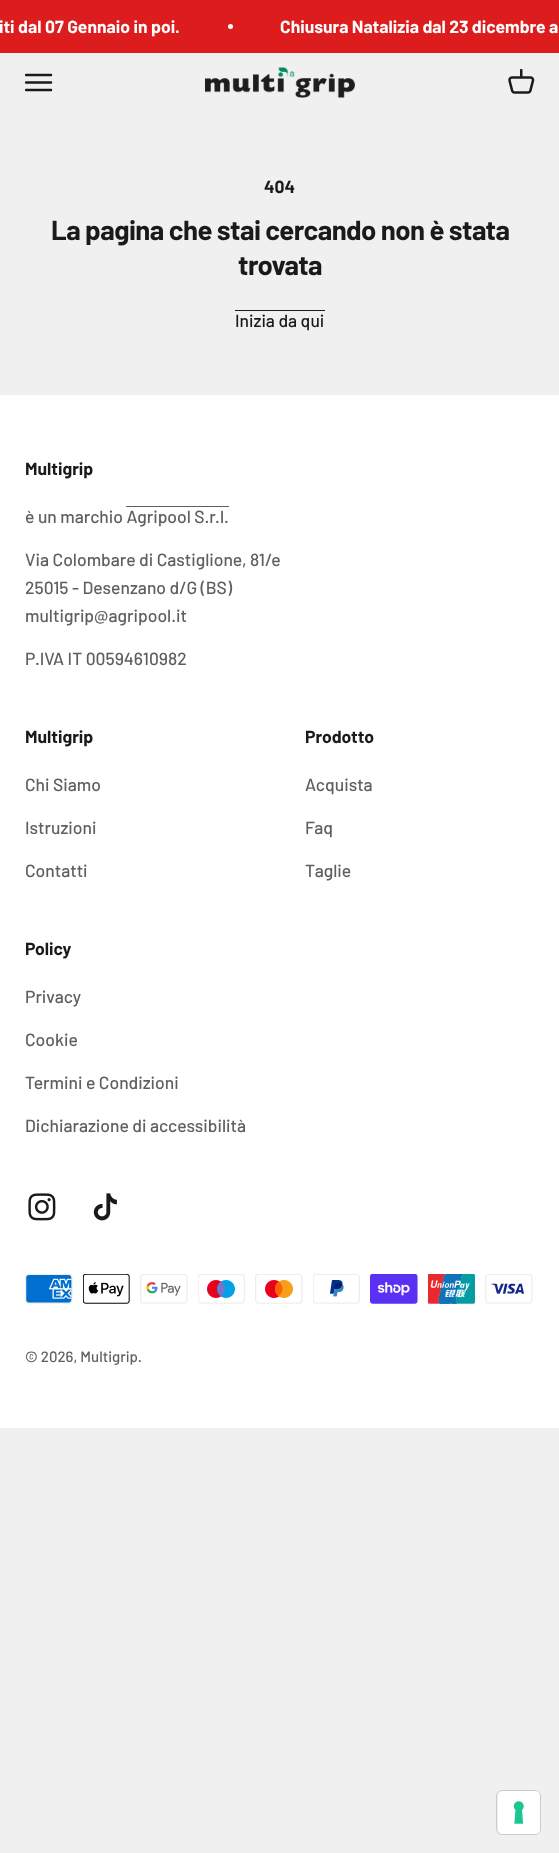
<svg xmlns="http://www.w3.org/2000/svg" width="559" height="1853">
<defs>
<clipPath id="clip1"><rect x="25" y="69" width="28" height="27"/></clipPath>
</defs>
<rect width="100%" height="100%" fill="#f0f0f0"/>
<rect width="559" height="53" fill="#dd1d1d"/>
<text x="-1" y="33" style="font-family:Barlow;font-size:17.5px;font-weight:bold;fill:#fff">iti dal 07 Gennaio in poi.</text>
<circle cx="230.5" cy="26.5" r="2.5" fill="#fff"/>
<text x="280" y="33" style="font-family:Barlow;font-size:17.5px;font-weight:bold;fill:#fff">Chiusura Natalizia dal 23 dicembre a</text>
<g clip-path="url(#clip1)">
<path d="M26 75h25m-25 7.5h25m-25 7.5h25" fill="none" stroke="#1a1a1a" stroke-width="2.5" stroke-linecap="round"/>
</g>
<image x="205" y="67" width="150" height="31" href="media/1.png"/>
<image x="508" y="69" width="27" height="25" href="media/2.png"/>
<text x="264" y="193" style="font-family:Barlow;font-size:17.5px;font-weight:bold;fill:#1a1a1a">404</text>
<text x="51" y="240" style="font-family:Barlow;font-size:27.5px;font-weight:bold;letter-spacing:-0.55px;fill:#1a1a1a">La pagina che stai cercando non è stata</text>
<text x="238" y="275" style="font-family:Barlow;font-size:27.5px;font-weight:bold;letter-spacing:-0.55px;fill:#1a1a1a">trovata</text>
<text x="235" y="327" style="font-family:Barlow;font-size:17.5px;font-weight:500;fill:#1a1a1a">Inizia da qui</text>
<rect x="235" y="310" width="90" height="1" fill="#1a1a1a"/>
<rect y="395" width="559" height="1033" fill="#fff"/>
<text x="25" y="475" style="font-family:Barlow;font-size:17.5px;font-weight:bold;fill:#1a1a1a">Multigrip</text>
<rect x="126" y="506" width="103" height="1" fill="#5f5f5f"/>
<text x="25" y="523" style="font-family:Barlow;font-size:17.5px;font-weight:500;fill:#5f5f5f">è un marchio Agripool S.r.l.</text>
<text x="25" y="566" style="font-family:Barlow;font-size:17.5px;font-weight:500;fill:#5f5f5f">Via Colombare di Castiglione, 81/e</text>
<text x="25" y="594" style="font-family:Barlow;font-size:17.5px;font-weight:500;fill:#5f5f5f">25015 - Desenzano d/G (BS)</text>
<text x="25" y="622" style="font-family:Barlow;font-size:17.5px;font-weight:500;fill:#5f5f5f">multigrip@agripool.it</text>
<text x="25" y="665" style="font-family:Barlow;font-size:17.5px;font-weight:500;fill:#5f5f5f">P.IVA IT 00594610982</text>
<text x="25" y="743" style="font-family:Barlow;font-size:17.5px;font-weight:bold;fill:#1a1a1a">Multigrip</text>
<text x="25" y="791" style="font-family:Barlow;font-size:17.5px;font-weight:500;fill:#5f5f5f">Chi Siamo</text>
<text x="25" y="834" style="font-family:Barlow;font-size:17.5px;font-weight:500;fill:#5f5f5f">Istruzioni</text>
<text x="25" y="877" style="font-family:Barlow;font-size:17.5px;font-weight:500;fill:#5f5f5f">Contatti</text>
<text x="305" y="743" style="font-family:Barlow;font-size:17.5px;font-weight:bold;fill:#1a1a1a">Prodotto</text>
<text x="305" y="791" style="font-family:Barlow;font-size:17.5px;font-weight:500;fill:#5f5f5f">Acquista</text>
<text x="305" y="834" style="font-family:Barlow;font-size:17.5px;font-weight:500;fill:#5f5f5f">Faq</text>
<text x="305" y="877" style="font-family:Barlow;font-size:17.5px;font-weight:500;fill:#5f5f5f">Taglie</text>
<text x="25" y="955" style="font-family:Barlow;font-size:17.5px;font-weight:bold;fill:#1a1a1a">Policy</text>
<text x="25" y="1003" style="font-family:Barlow;font-size:17.5px;font-weight:500;fill:#5f5f5f">Privacy</text>
<text x="25" y="1046" style="font-family:Barlow;font-size:17.5px;font-weight:500;fill:#5f5f5f">Cookie</text>
<text x="25" y="1089" style="font-family:Barlow;font-size:17.5px;font-weight:500;fill:#5f5f5f">Termini e Condizioni</text>
<text x="25" y="1132" style="font-family:Barlow;font-size:17.5px;font-weight:500;fill:#5f5f5f">Dichiarazione di accessibilità</text>
<image x="28" y="1193" width="28" height="28" href="media/3.png"/>
<image x="93" y="1193" width="24" height="28" href="media/4.png"/>
<image x="25" y="1274" width="48" height="30" href="media/5.png"/>
<image x="83" y="1274" width="47" height="30" href="media/6.png"/>
<image x="140" y="1274" width="48" height="30" href="media/7.png"/>
<image x="198" y="1274" width="47" height="30" href="media/8.png"/>
<image x="255" y="1274" width="48" height="30" href="media/9.png"/>
<image x="313" y="1274" width="47" height="30" href="media/10.png"/>
<image x="370" y="1274" width="48" height="30" href="media/11.png"/>
<image x="428" y="1274" width="47" height="30" href="media/12.png"/>
<image x="485" y="1274" width="48" height="30" href="media/13.png"/>
<text x="25" y="1362" style="font-family:Barlow;font-size:15px;font-weight:500;fill:#5f5f5f">© 2026, Multigrip.</text>
<rect x="496.5" y="1790.5" width="44" height="44" rx="5.5" fill="none" stroke="#ccc"/>
<rect x="498" y="1791" width="42" height="43" rx="5" fill="#fff"/>
<image x="513" y="1801" width="11" height="23" href="media/14.png"/>
</svg>
